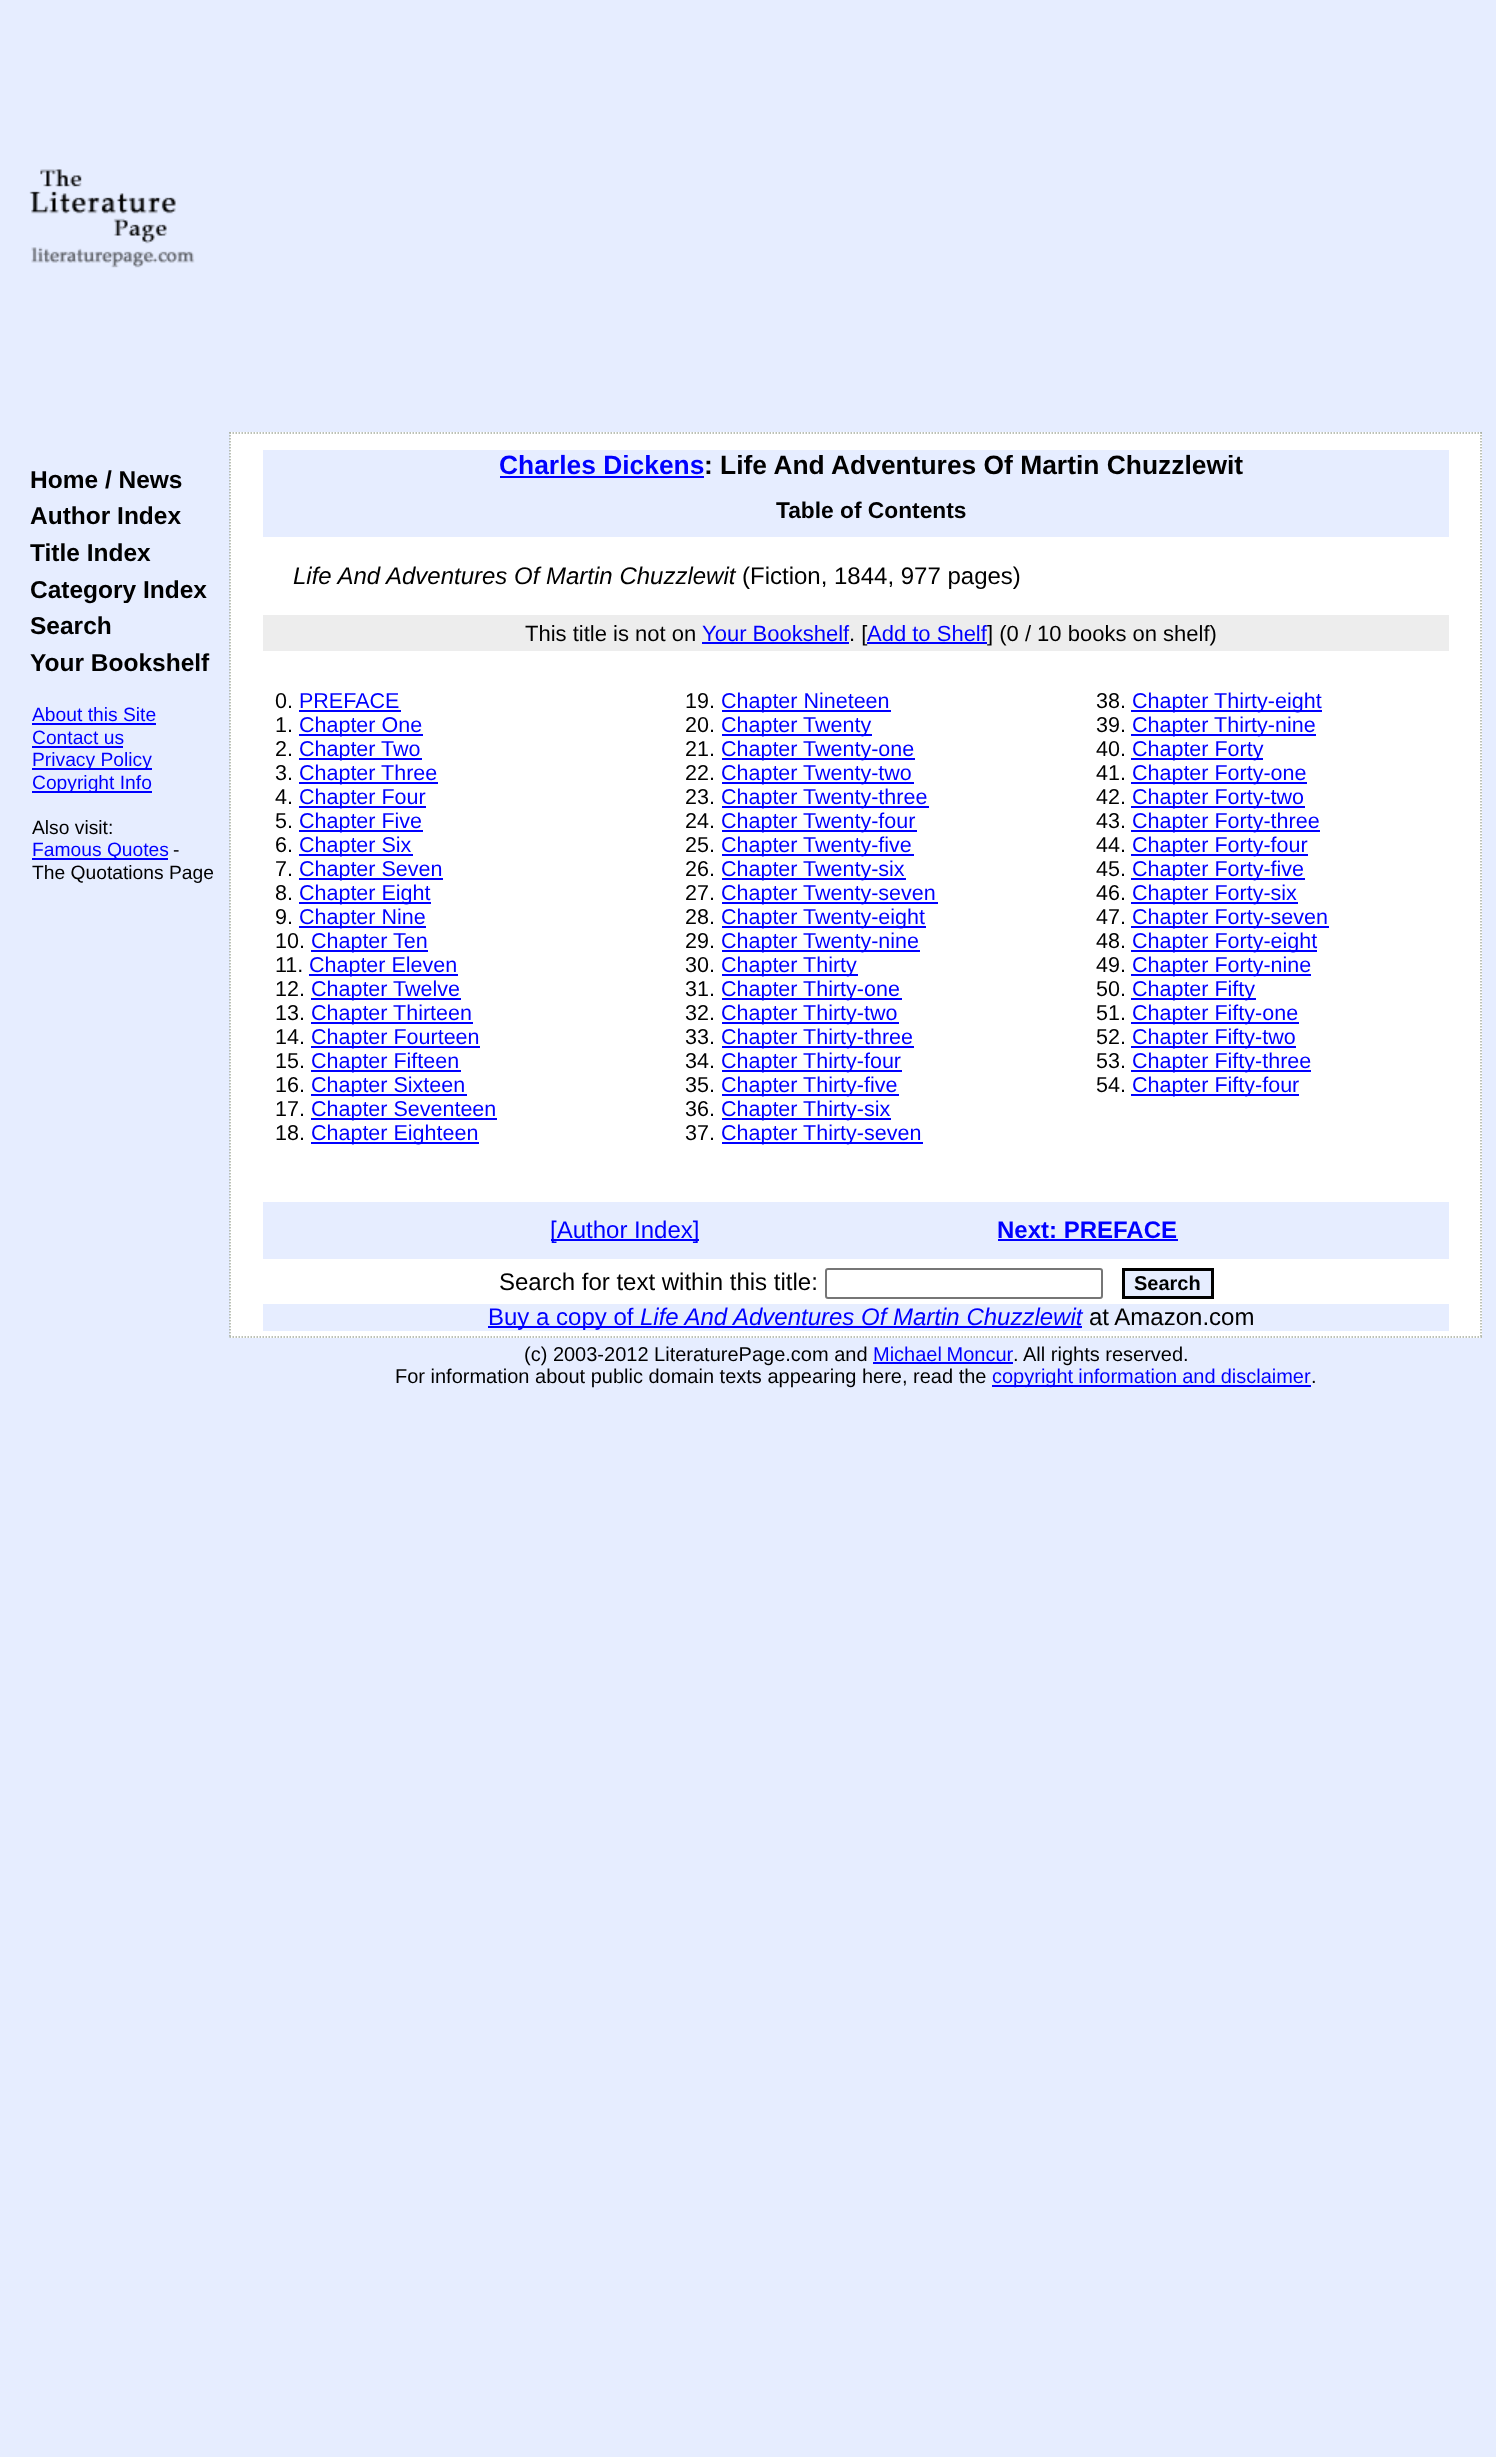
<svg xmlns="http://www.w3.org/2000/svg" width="1496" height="2457">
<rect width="100%" height="100%" fill="#e6edff"/>
<image x="29" y="169" width="166" height="99" href="media/1.png"/>
<text x="30" y="488" style="font-family:Liberation Sans;font-size:24.5px;font-weight:bold;fill:#000">Home / News</text>
<text x="30" y="524" style="font-family:Liberation Sans;font-size:24.5px;font-weight:bold;fill:#000">Author Index</text>
<text x="30" y="561" style="font-family:Liberation Sans;font-size:24.5px;font-weight:bold;fill:#000">Title Index</text>
<text x="30" y="598" style="font-family:Liberation Sans;font-size:24.5px;font-weight:bold;fill:#000">Category Index</text>
<text x="30" y="634" style="font-family:Liberation Sans;font-size:24.5px;font-weight:bold;fill:#000">Search</text>
<text x="30" y="671" style="font-family:Liberation Sans;font-size:24.5px;font-weight:bold;fill:#000">Your Bookshelf</text>
<text x="32" y="721" style="font-family:Liberation Sans;font-size:19.25px;fill:#00f">About this Site</text>
<rect x="32" y="723" width="124" height="2" fill="#00f"/>
<text x="32" y="744" style="font-family:Liberation Sans;font-size:19.25px;fill:#00f">Contact us</text>
<rect x="32" y="746" width="91" height="2" fill="#00f"/>
<rect x="32" y="768" width="120" height="2" fill="#00f"/>
<text x="32" y="766" style="font-family:Liberation Sans;font-size:19.25px;fill:#00f">Privacy Policy</text>
<rect x="32" y="791" width="120" height="2" fill="#00f"/>
<text x="32" y="789" style="font-family:Liberation Sans;font-size:19.25px;fill:#00f">Copyright Info</text>
<text x="32" y="834" style="font-family:Liberation Sans;font-size:19.25px;fill:#000">Also visit:</text>
<rect x="32" y="858" width="136" height="2" fill="#00f"/>
<text x="32" y="856" style="font-family:Liberation Sans;font-size:19.25px;fill:#00f">Famous Quotes</text>
<text x="173" y="856" style="font-family:Liberation Sans;font-size:19.25px;fill:#000">-</text>
<text x="32" y="879" style="font-family:Liberation Sans;font-size:19.25px;fill:#000">The Quotations Page</text>
<rect x="230" y="432" width="1252" height="906" fill="#fff"/>
<path d="M229.5 433h1252.5" fill="none" stroke="#a6ad9f" stroke-width="1.5" stroke-dasharray="1.5 1.5"/>
<path d="M1481 432v906" fill="none" stroke="#a6ad9f" stroke-width="1.5" stroke-dasharray="1.5 1.5"/>
<path d="M229.5 1337h1252.5" fill="none" stroke="#a6ad9f" stroke-width="1.5" stroke-dasharray="1.5 1.5"/>
<path d="M230 432v906" fill="none" stroke="#a6ad9f" stroke-width="1.5" stroke-dasharray="1.5 1.5"/>
<rect x="263" y="450" width="1186" height="87" fill="#e6edff"/>
<text x="499" y="474" style="font-family:Liberation Sans;font-size:26.4px;font-weight:bold;fill:#00f">Charles Dickens</text>
<rect x="500" y="476" width="204" height="2" fill="#00f"/>
<text x="704" y="474" style="font-family:Liberation Sans;font-size:26.4px;font-weight:bold;fill:#000">: Life And Adventures Of Martin Chuzzlewit</text>
<text x="776" y="518" style="font-family:Liberation Sans;font-size:22.75px;font-weight:bold;fill:#000">Table of Contents</text>
<text x="293" y="584" style="font-family:Liberation Sans;font-size:24px;font-style:italic;fill:#000">Life And Adventures Of Martin Chuzzlewit</text>
<text x="742" y="584" style="font-family:Liberation Sans;font-size:24px;fill:#000">(Fiction, 1844, 977 pages)</text>
<rect x="263" y="615" width="1186" height="36" fill="#ededed"/>
<text x="525" y="641" style="font-family:Liberation Sans;font-size:22px;fill:#000">This title is not on</text>
<text x="702" y="641" style="font-family:Liberation Sans;font-size:22px;fill:#00f">Your Bookshelf</text>
<rect x="702" y="642" width="147" height="2" fill="#00f"/>
<text x="849" y="641" style="font-family:Liberation Sans;font-size:22px;fill:#000">. [</text>
<text x="867" y="641" style="font-family:Liberation Sans;font-size:22px;fill:#00f">Add to Shelf</text>
<rect x="867" y="642" width="120" height="2" fill="#00f"/>
<text x="987" y="641" style="font-family:Liberation Sans;font-size:22px;fill:#000">] (0 / 10 books on shelf)</text>
<text x="275" y="708" style="font-family:Liberation Sans;font-size:21.5px;fill:#000">0.</text>
<text x="299" y="708" style="font-family:Liberation Sans;font-size:21.5px;fill:#00f">PREFACE</text>
<rect x="299" y="710" width="102" height="2" fill="#00f"/>
<text x="275" y="732" style="font-family:Liberation Sans;font-size:21.5px;fill:#000">1.</text>
<rect x="299" y="734" width="124" height="2" fill="#00f"/>
<text x="299" y="732" style="font-family:Liberation Sans;font-size:21.5px;fill:#00f">Chapter One</text>
<text x="275" y="756" style="font-family:Liberation Sans;font-size:21.5px;fill:#000">2.</text>
<rect x="299" y="758" width="123" height="2" fill="#00f"/>
<text x="299" y="756" style="font-family:Liberation Sans;font-size:21.5px;fill:#00f">Chapter Two</text>
<text x="275" y="780" style="font-family:Liberation Sans;font-size:21.5px;fill:#000">3.</text>
<rect x="299" y="782" width="139" height="2" fill="#00f"/>
<text x="299" y="780" style="font-family:Liberation Sans;font-size:21.5px;fill:#00f">Chapter Three</text>
<text x="275" y="804" style="font-family:Liberation Sans;font-size:21.5px;fill:#000">4.</text>
<rect x="299" y="806" width="127" height="2" fill="#00f"/>
<text x="299" y="804" style="font-family:Liberation Sans;font-size:21.5px;fill:#00f">Chapter Four</text>
<text x="275" y="828" style="font-family:Liberation Sans;font-size:21.5px;fill:#000">5.</text>
<rect x="299" y="830" width="124" height="2" fill="#00f"/>
<text x="299" y="828" style="font-family:Liberation Sans;font-size:21.5px;fill:#00f">Chapter Five</text>
<text x="275" y="852" style="font-family:Liberation Sans;font-size:21.5px;fill:#000">6.</text>
<rect x="299" y="854" width="114" height="2" fill="#00f"/>
<text x="299" y="852" style="font-family:Liberation Sans;font-size:21.5px;fill:#00f">Chapter Six</text>
<text x="275" y="876" style="font-family:Liberation Sans;font-size:21.5px;fill:#000">7.</text>
<rect x="299" y="878" width="144" height="2" fill="#00f"/>
<text x="299" y="876" style="font-family:Liberation Sans;font-size:21.5px;fill:#00f">Chapter Seven</text>
<text x="275" y="900" style="font-family:Liberation Sans;font-size:21.5px;fill:#000">8.</text>
<rect x="299" y="902" width="132" height="2" fill="#00f"/>
<text x="299" y="900" style="font-family:Liberation Sans;font-size:21.5px;fill:#00f">Chapter Eight</text>
<text x="275" y="924" style="font-family:Liberation Sans;font-size:21.5px;fill:#000">9.</text>
<rect x="299" y="926" width="127" height="2" fill="#00f"/>
<text x="299" y="924" style="font-family:Liberation Sans;font-size:21.5px;fill:#00f">Chapter Nine</text>
<text x="275" y="948" style="font-family:Liberation Sans;font-size:21.5px;fill:#000">10.</text>
<rect x="311" y="950" width="117" height="2" fill="#00f"/>
<text x="311" y="948" style="font-family:Liberation Sans;font-size:21.5px;fill:#00f">Chapter Ten</text>
<text x="275" y="972" style="font-family:Liberation Sans;font-size:21.5px;fill:#000">11.</text>
<rect x="309" y="974" width="149" height="2" fill="#00f"/>
<text x="309" y="972" style="font-family:Liberation Sans;font-size:21.5px;fill:#00f">Chapter Eleven</text>
<text x="275" y="996" style="font-family:Liberation Sans;font-size:21.5px;fill:#000">12.</text>
<rect x="311" y="998" width="150" height="2" fill="#00f"/>
<text x="311" y="996" style="font-family:Liberation Sans;font-size:21.5px;fill:#00f">Chapter Twelve</text>
<text x="275" y="1020" style="font-family:Liberation Sans;font-size:21.5px;fill:#000">13.</text>
<rect x="311" y="1022" width="162" height="2" fill="#00f"/>
<text x="311" y="1020" style="font-family:Liberation Sans;font-size:21.5px;fill:#00f">Chapter Thirteen</text>
<text x="275" y="1044" style="font-family:Liberation Sans;font-size:21.5px;fill:#000">14.</text>
<rect x="311" y="1046" width="169" height="2" fill="#00f"/>
<text x="311" y="1044" style="font-family:Liberation Sans;font-size:21.5px;fill:#00f">Chapter Fourteen</text>
<text x="275" y="1068" style="font-family:Liberation Sans;font-size:21.5px;fill:#000">15.</text>
<rect x="311" y="1070" width="150" height="2" fill="#00f"/>
<text x="311" y="1068" style="font-family:Liberation Sans;font-size:21.5px;fill:#00f">Chapter Fifteen</text>
<text x="275" y="1092" style="font-family:Liberation Sans;font-size:21.5px;fill:#000">16.</text>
<rect x="311" y="1094" width="156" height="2" fill="#00f"/>
<text x="311" y="1092" style="font-family:Liberation Sans;font-size:21.5px;fill:#00f">Chapter Sixteen</text>
<text x="275" y="1116" style="font-family:Liberation Sans;font-size:21.5px;fill:#000">17.</text>
<rect x="311" y="1118" width="186" height="2" fill="#00f"/>
<text x="311" y="1116" style="font-family:Liberation Sans;font-size:21.5px;fill:#00f">Chapter Seventeen</text>
<text x="275" y="1140" style="font-family:Liberation Sans;font-size:21.5px;fill:#000">18.</text>
<rect x="311" y="1142" width="168" height="2" fill="#00f"/>
<text x="311" y="1140" style="font-family:Liberation Sans;font-size:21.5px;fill:#00f">Chapter Eighteen</text>
<text x="685" y="708" style="font-family:Liberation Sans;font-size:21.5px;fill:#000">19.</text>
<rect x="722" y="710" width="169" height="2" fill="#00f"/>
<text x="721" y="708" style="font-family:Liberation Sans;font-size:21.5px;fill:#00f">Chapter Nineteen</text>
<text x="685" y="732" style="font-family:Liberation Sans;font-size:21.5px;fill:#000">20.</text>
<rect x="722" y="734" width="150" height="2" fill="#00f"/>
<text x="721" y="732" style="font-family:Liberation Sans;font-size:21.5px;fill:#00f">Chapter Twenty</text>
<text x="685" y="756" style="font-family:Liberation Sans;font-size:21.5px;fill:#000">21.</text>
<rect x="722" y="758" width="193" height="2" fill="#00f"/>
<text x="721" y="756" style="font-family:Liberation Sans;font-size:21.5px;fill:#00f">Chapter Twenty-one</text>
<text x="685" y="780" style="font-family:Liberation Sans;font-size:21.5px;fill:#000">22.</text>
<rect x="722" y="782" width="192" height="2" fill="#00f"/>
<text x="721" y="780" style="font-family:Liberation Sans;font-size:21.5px;fill:#00f">Chapter Twenty-two</text>
<text x="685" y="804" style="font-family:Liberation Sans;font-size:21.5px;fill:#000">23.</text>
<rect x="722" y="806" width="207" height="2" fill="#00f"/>
<text x="721" y="804" style="font-family:Liberation Sans;font-size:21.5px;fill:#00f">Chapter Twenty-three</text>
<text x="685" y="828" style="font-family:Liberation Sans;font-size:21.5px;fill:#000">24.</text>
<rect x="722" y="830" width="195" height="2" fill="#00f"/>
<text x="721" y="828" style="font-family:Liberation Sans;font-size:21.5px;fill:#00f">Chapter Twenty-four</text>
<text x="685" y="852" style="font-family:Liberation Sans;font-size:21.5px;fill:#000">25.</text>
<rect x="722" y="854" width="192" height="2" fill="#00f"/>
<text x="721" y="852" style="font-family:Liberation Sans;font-size:21.5px;fill:#00f">Chapter Twenty-five</text>
<text x="685" y="876" style="font-family:Liberation Sans;font-size:21.5px;fill:#000">26.</text>
<rect x="722" y="878" width="184" height="2" fill="#00f"/>
<text x="721" y="876" style="font-family:Liberation Sans;font-size:21.5px;fill:#00f">Chapter Twenty-six</text>
<text x="685" y="900" style="font-family:Liberation Sans;font-size:21.5px;fill:#000">27.</text>
<rect x="722" y="902" width="216" height="2" fill="#00f"/>
<text x="721" y="900" style="font-family:Liberation Sans;font-size:21.5px;fill:#00f">Chapter Twenty-seven</text>
<text x="685" y="924" style="font-family:Liberation Sans;font-size:21.5px;fill:#000">28.</text>
<rect x="722" y="926" width="204" height="2" fill="#00f"/>
<text x="721" y="924" style="font-family:Liberation Sans;font-size:21.5px;fill:#00f">Chapter Twenty-eight</text>
<text x="685" y="948" style="font-family:Liberation Sans;font-size:21.5px;fill:#000">29.</text>
<rect x="722" y="950" width="198" height="2" fill="#00f"/>
<text x="721" y="948" style="font-family:Liberation Sans;font-size:21.5px;fill:#00f">Chapter Twenty-nine</text>
<text x="685" y="972" style="font-family:Liberation Sans;font-size:21.5px;fill:#000">30.</text>
<rect x="722" y="974" width="136" height="2" fill="#00f"/>
<text x="721" y="972" style="font-family:Liberation Sans;font-size:21.5px;fill:#00f">Chapter Thirty</text>
<text x="685" y="996" style="font-family:Liberation Sans;font-size:21.5px;fill:#000">31.</text>
<rect x="722" y="998" width="180" height="2" fill="#00f"/>
<text x="721" y="996" style="font-family:Liberation Sans;font-size:21.5px;fill:#00f">Chapter Thirty-one</text>
<text x="685" y="1020" style="font-family:Liberation Sans;font-size:21.5px;fill:#000">32.</text>
<rect x="722" y="1022" width="177" height="2" fill="#00f"/>
<text x="721" y="1020" style="font-family:Liberation Sans;font-size:21.5px;fill:#00f">Chapter Thirty-two</text>
<text x="685" y="1044" style="font-family:Liberation Sans;font-size:21.5px;fill:#000">33.</text>
<rect x="722" y="1046" width="192" height="2" fill="#00f"/>
<text x="721" y="1044" style="font-family:Liberation Sans;font-size:21.5px;fill:#00f">Chapter Thirty-three</text>
<text x="685" y="1068" style="font-family:Liberation Sans;font-size:21.5px;fill:#000">34.</text>
<rect x="722" y="1070" width="180" height="2" fill="#00f"/>
<text x="721" y="1068" style="font-family:Liberation Sans;font-size:21.5px;fill:#00f">Chapter Thirty-four</text>
<text x="685" y="1092" style="font-family:Liberation Sans;font-size:21.5px;fill:#000">35.</text>
<rect x="722" y="1094" width="177" height="2" fill="#00f"/>
<text x="721" y="1092" style="font-family:Liberation Sans;font-size:21.5px;fill:#00f">Chapter Thirty-five</text>
<text x="685" y="1116" style="font-family:Liberation Sans;font-size:21.5px;fill:#000">36.</text>
<rect x="722" y="1118" width="169" height="2" fill="#00f"/>
<text x="721" y="1116" style="font-family:Liberation Sans;font-size:21.5px;fill:#00f">Chapter Thirty-six</text>
<text x="685" y="1140" style="font-family:Liberation Sans;font-size:21.5px;fill:#000">37.</text>
<rect x="722" y="1142" width="201" height="2" fill="#00f"/>
<text x="721" y="1140" style="font-family:Liberation Sans;font-size:21.5px;fill:#00f">Chapter Thirty-seven</text>
<text x="1096" y="708" style="font-family:Liberation Sans;font-size:21.5px;fill:#000">38.</text>
<rect x="1131" y="710" width="191" height="2" fill="#00f"/>
<text x="1132" y="708" style="font-family:Liberation Sans;font-size:21.5px;fill:#00f">Chapter Thirty-eight</text>
<text x="1096" y="732" style="font-family:Liberation Sans;font-size:21.5px;fill:#000">39.</text>
<rect x="1131" y="734" width="185" height="2" fill="#00f"/>
<text x="1132" y="732" style="font-family:Liberation Sans;font-size:21.5px;fill:#00f">Chapter Thirty-nine</text>
<text x="1096" y="756" style="font-family:Liberation Sans;font-size:21.5px;fill:#000">40.</text>
<rect x="1131" y="758" width="132" height="2" fill="#00f"/>
<text x="1132" y="756" style="font-family:Liberation Sans;font-size:21.5px;fill:#00f">Chapter Forty</text>
<text x="1096" y="780" style="font-family:Liberation Sans;font-size:21.5px;fill:#000">41.</text>
<rect x="1131" y="782" width="176" height="2" fill="#00f"/>
<text x="1132" y="780" style="font-family:Liberation Sans;font-size:21.5px;fill:#00f">Chapter Forty-one</text>
<text x="1096" y="804" style="font-family:Liberation Sans;font-size:21.5px;fill:#000">42.</text>
<rect x="1131" y="806" width="174" height="2" fill="#00f"/>
<text x="1132" y="804" style="font-family:Liberation Sans;font-size:21.5px;fill:#00f">Chapter Forty-two</text>
<text x="1096" y="828" style="font-family:Liberation Sans;font-size:21.5px;fill:#000">43.</text>
<rect x="1131" y="830" width="189" height="2" fill="#00f"/>
<text x="1132" y="828" style="font-family:Liberation Sans;font-size:21.5px;fill:#00f">Chapter Forty-three</text>
<text x="1096" y="852" style="font-family:Liberation Sans;font-size:21.5px;fill:#000">44.</text>
<rect x="1131" y="854" width="177" height="2" fill="#00f"/>
<text x="1132" y="852" style="font-family:Liberation Sans;font-size:21.5px;fill:#00f">Chapter Forty-four</text>
<text x="1096" y="876" style="font-family:Liberation Sans;font-size:21.5px;fill:#000">45.</text>
<rect x="1131" y="878" width="174" height="2" fill="#00f"/>
<text x="1132" y="876" style="font-family:Liberation Sans;font-size:21.5px;fill:#00f">Chapter Forty-five</text>
<text x="1096" y="900" style="font-family:Liberation Sans;font-size:21.5px;fill:#000">46.</text>
<rect x="1131" y="902" width="167" height="2" fill="#00f"/>
<text x="1132" y="900" style="font-family:Liberation Sans;font-size:21.5px;fill:#00f">Chapter Forty-six</text>
<text x="1096" y="924" style="font-family:Liberation Sans;font-size:21.5px;fill:#000">47.</text>
<rect x="1131" y="926" width="198" height="2" fill="#00f"/>
<text x="1132" y="924" style="font-family:Liberation Sans;font-size:21.5px;fill:#00f">Chapter Forty-seven</text>
<text x="1096" y="948" style="font-family:Liberation Sans;font-size:21.5px;fill:#000">48.</text>
<rect x="1131" y="950" width="186" height="2" fill="#00f"/>
<text x="1132" y="948" style="font-family:Liberation Sans;font-size:21.5px;fill:#00f">Chapter Forty-eight</text>
<text x="1096" y="972" style="font-family:Liberation Sans;font-size:21.5px;fill:#000">49.</text>
<rect x="1131" y="974" width="180" height="2" fill="#00f"/>
<text x="1132" y="972" style="font-family:Liberation Sans;font-size:21.5px;fill:#00f">Chapter Forty-nine</text>
<text x="1096" y="996" style="font-family:Liberation Sans;font-size:21.5px;fill:#000">50.</text>
<rect x="1131" y="998" width="125" height="2" fill="#00f"/>
<text x="1132" y="996" style="font-family:Liberation Sans;font-size:21.5px;fill:#00f">Chapter Fifty</text>
<text x="1096" y="1020" style="font-family:Liberation Sans;font-size:21.5px;fill:#000">51.</text>
<rect x="1131" y="1022" width="168" height="2" fill="#00f"/>
<text x="1132" y="1020" style="font-family:Liberation Sans;font-size:21.5px;fill:#00f">Chapter Fifty-one</text>
<text x="1096" y="1044" style="font-family:Liberation Sans;font-size:21.5px;fill:#000">52.</text>
<rect x="1131" y="1046" width="165" height="2" fill="#00f"/>
<text x="1132" y="1044" style="font-family:Liberation Sans;font-size:21.5px;fill:#00f">Chapter Fifty-two</text>
<text x="1096" y="1068" style="font-family:Liberation Sans;font-size:21.5px;fill:#000">53.</text>
<rect x="1131" y="1070" width="180" height="2" fill="#00f"/>
<text x="1132" y="1068" style="font-family:Liberation Sans;font-size:21.5px;fill:#00f">Chapter Fifty-three</text>
<text x="1096" y="1092" style="font-family:Liberation Sans;font-size:21.5px;fill:#000">54.</text>
<rect x="1131" y="1094" width="168" height="2" fill="#00f"/>
<text x="1132" y="1092" style="font-family:Liberation Sans;font-size:21.5px;fill:#00f">Chapter Fifty-four</text>
<rect x="263" y="1202" width="1186" height="57" fill="#e6edff"/>
<rect x="551" y="1239" width="148" height="2" fill="#00f"/>
<text x="550" y="1238" style="font-family:Liberation Sans;font-size:24px;fill:#00f">[Author Index]</text>
<text x="997" y="1238" style="font-family:Liberation Sans;font-size:24px;font-weight:bold;fill:#00f">Next: PREFACE</text>
<rect x="998" y="1239" width="180" height="2" fill="#00f"/>
<text x="499" y="1290" style="font-family:Liberation Sans;font-size:24px;fill:#000">Search for text within this title:</text>
<rect x="826" y="1269" width="276" height="29" rx="2" fill="none" stroke="#767676" stroke-width="2"/>
<rect x="1123.5" y="1269.5" width="89" height="28" fill="#e6edff" stroke="#000" stroke-width="3"/>
<text x="1134" y="1290" style="font-family:Liberation Sans;font-size:20px;font-weight:bold;fill:#000">Search</text>
<rect x="263" y="1304" width="1186" height="27" fill="#e6edff"/>
<rect x="488" y="1326" width="594" height="2" fill="#00f"/>
<text x="488" y="1325" style="font-family:Liberation Sans;font-size:24px;fill:#00f">Buy a copy of</text>
<text x="640" y="1325" style="font-family:Liberation Sans;font-size:24px;font-style:italic;fill:#00f">Life And Adventures Of Martin Chuzzlewit</text>
<text x="1089" y="1325" style="font-family:Liberation Sans;font-size:24px;fill:#000">at Amazon.com</text>
<text x="524" y="1361" style="font-family:Liberation Sans;font-size:20px;fill:#000">(c) 2003-2012 LiteraturePage.com and</text>
<text x="873" y="1361" word-spacing="-1" style="font-family:Liberation Sans;font-size:20px;fill:#00f">Michael Moncur</text>
<text x="1013" y="1361" style="font-family:Liberation Sans;font-size:20px;fill:#000">. All rights reserved.</text>
<rect x="873" y="1362" width="140" height="2" fill="#00f"/>
<text x="395" y="1383" style="font-family:Liberation Sans;font-size:20px;fill:#000">For information about public domain texts appearing here, read the</text>
<rect x="992" y="1385" width="319" height="2" fill="#00f"/>
<text x="992" y="1383" word-spacing="-0.5" style="font-family:Liberation Sans;font-size:20px;fill:#00f">copyright information and disclaimer</text>
<text x="1311" y="1383" style="font-family:Liberation Sans;font-size:20px;fill:#000">.</text>
</svg>
